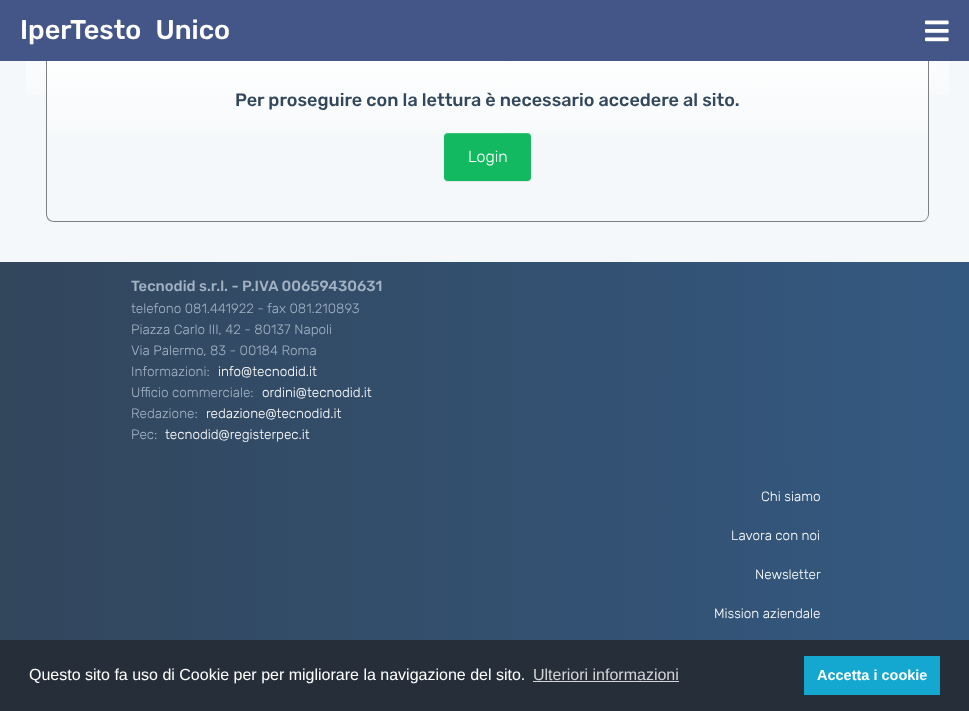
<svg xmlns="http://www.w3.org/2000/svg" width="969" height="711">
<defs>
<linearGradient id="g1" gradientUnits="userSpaceOnUse" x1="488" y1="22" x2="488" y2="242"><stop offset="0" stop-color="#fff"/><stop offset="0.44" stop-color="#f5f8fa"/></linearGradient>
<linearGradient id="g2" gradientUnits="userSpaceOnUse" x1="488" y1="47" x2="488" y2="221"><stop offset="0" stop-color="#fff" stop-opacity="0.5"/><stop offset="0.54" stop-color="#f5f8fa"/></linearGradient>
<linearGradient id="g3" gradientUnits="userSpaceOnUse" x1="0" y1="487" x2="969" y2="486"><stop offset="0" stop-color="#32465c"/><stop offset="1" stop-color="#345981"/></linearGradient>
</defs>
<rect width="100%" height="100%" fill="#f5f8fa"/>
<rect x="26" y="61" width="923" height="34" fill="url(#g1)"/>
<path d="M54 47h867c4 0 7 1 7 3v164c0 4-3 7-7 7h-867c-4 0-7-3-7-7v-164c0-2 3-3 7-3z" fill="#fff"/>
<path d="M54 47h867c4 0 7 1 7 3v164c0 4-3 7-7 7h-867c-4 0-7-3-7-7v-164c0-2 3-3 7-3z" fill="url(#g2)"/>
<path d="M929 214v-164l-1-3v2v1v164c0 2-1 4-2 5v1c2-2 3-4 3-6z" fill="#808080"/>
<path d="M54 222h867c2 0 4-1 5-2v-1c-1 1-3 2-5 2h-867c-2 0-4-1-5-2l-1 1c2 1 4 2 6 2z" fill="#808080"/>
<path d="M46 50v164c0 2 1 4 2 6l1-1c-1-1-2-3-2-5v-164v-1v-2z" fill="#808080"/>
<rect width="969" height="61" fill="#445687"/>
<text x="20" y="39" word-spacing="8" style="font-family:Rubik;font-size:27px;font-weight:500;fill:#fff">IperTesto Unico</text>
<image x="925" y="20" width="24" height="22" href="media/1.png"/>
<text x="235" y="106" style="font-family:Rubik;font-size:18px;font-weight:500;fill:#32465c">Per proseguire con la lettura è necessario accedere al sito.</text>
<rect x="444" y="134" width="87" height="48" rx="4" fill="#00000012" filter="blur(0.5px)"/>
<rect x="444" y="133" width="87" height="48" rx="4" fill="#12b961"/>
<path d="M448 134h79c2 0 4 2 4 4c0-8-12-5-17-5h-53c-5 0-17-3-17 5c0-2 2-4 4-4z" fill="#ffffff26"/>
<text x="468" y="162" style="font-family:Rubik;font-size:16px;font-weight:300;fill:#fff">Login</text>
<rect y="262" width="969" height="378" fill="url(#g3)"/>
<text x="131" y="291" style="font-family:Rubik;font-size:14.8px;font-weight:500;fill:#a2b2c3">Tecnodid s.r.l. - P.IVA 00659430631</text>
<text x="131" y="313" style="font-family:Rubik;font-size:13.5px;font-weight:300;fill:#a2b2c3">telefono 081.441922 - fax 081.210893</text>
<text x="131" y="334" style="font-family:Rubik;font-size:13.5px;font-weight:300;fill:#a2b2c3">Piazza Carlo III, 42 - 80137 Napoli</text>
<text x="131" y="355" style="font-family:Rubik;font-size:13.5px;font-weight:300;fill:#a2b2c3">Via Palermo, 83 - 00184 Roma</text>
<text x="131" y="376" style="font-family:Rubik;font-size:13.5px;font-weight:300;fill:#a2b2c3">Informazioni:</text>
<text x="218" y="376" style="font-family:Rubik;font-size:13.5px;font-weight:300;fill:#fff">info@tecnodid.it</text>
<text x="131" y="397" style="font-family:Rubik;font-size:13.5px;font-weight:300;fill:#a2b2c3">Ufficio commerciale:</text>
<text x="262" y="397" style="font-family:Rubik;font-size:13.5px;font-weight:300;fill:#fff">ordini@tecnodid.it</text>
<text x="131" y="418" style="font-family:Rubik;font-size:13.5px;font-weight:300;fill:#a2b2c3">Redazione:</text>
<text x="206" y="418" style="font-family:Rubik;font-size:13.5px;font-weight:300;fill:#fff">redazione@tecnodid.it</text>
<text x="131" y="439" style="font-family:Rubik;font-size:13.5px;font-weight:300;fill:#a2b2c3">Pec:</text>
<text x="165" y="439" style="font-family:Rubik;font-size:13.5px;font-weight:300;fill:#fff">tecnodid@registerpec.it</text>
<text x="761" y="501" style="font-family:Rubik;font-size:13.5px;font-weight:300;fill:#fff">Chi siamo</text>
<text x="731" y="540" style="font-family:Rubik;font-size:13.5px;font-weight:300;fill:#fff">Lavora con noi</text>
<text x="755" y="579" style="font-family:Rubik;font-size:13.5px;font-weight:300;fill:#fff">Newsletter</text>
<text x="714" y="618" style="font-family:Rubik;font-size:13.5px;font-weight:300;fill:#fff">Mission aziendale</text>
<rect y="640" width="969" height="71" fill="#252e39"/>
<text x="29" y="680" style="font-family:Liberation Sans;font-size:16px;fill:#fff">Questo sito fa uso di Cookie per per migliorare la navigazione del sito.</text>
<text x="533" y="680" style="font-family:Liberation Sans;font-size:16px;fill:#d3d5d7">Ulteriori informazioni</text>
<rect x="533" y="681" width="146" height="1" fill="#d3d5d7"/>
<rect x="804" y="656" width="136" height="39" fill="#14a7d0"/>
<text x="817" y="680" style="font-family:Liberation Sans;font-size:14.5px;font-weight:bold;fill:#fff">Accetta i cookie</text>
</svg>
